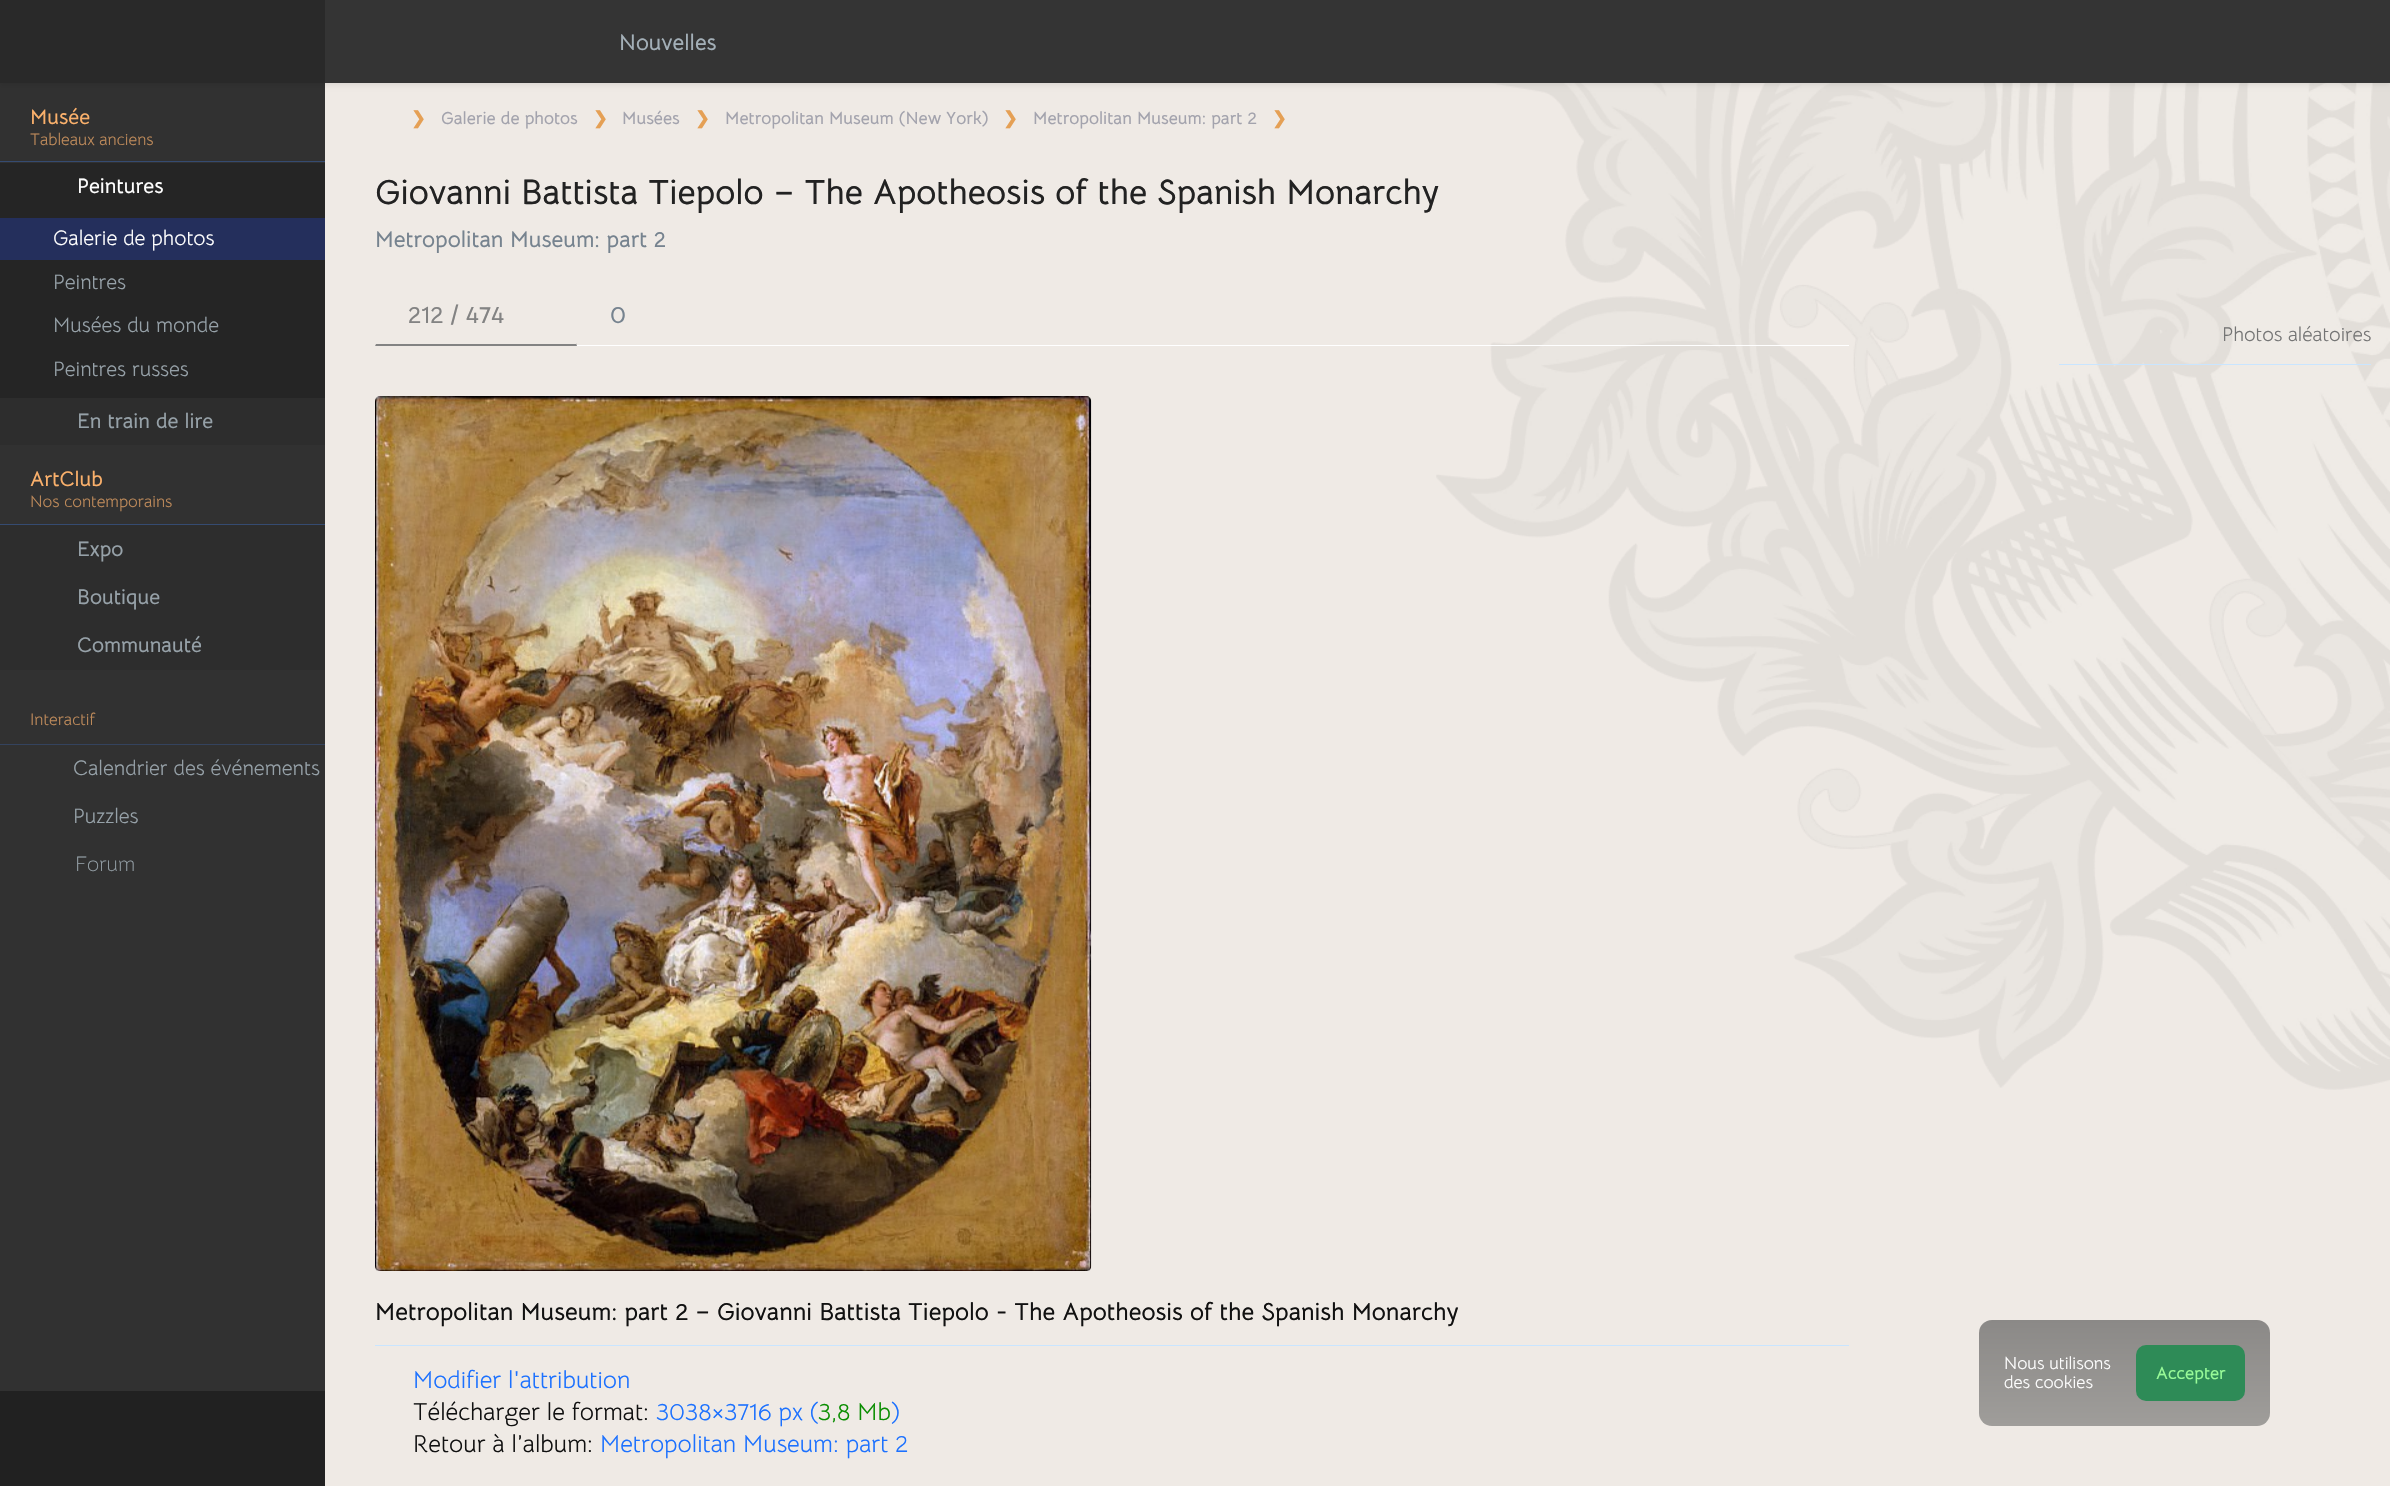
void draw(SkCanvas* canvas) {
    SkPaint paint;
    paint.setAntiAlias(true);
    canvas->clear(0xFF212121);
    paint.setColor(0xFF313131);
    canvas->drawRect(SkRect::MakeXYWH(0, 83, 325, 1308), paint);
    paint.setColor(0xFFEFEAE5);
    canvas->drawRect(SkRect::MakeXYWH(325, 83, 2065, 1403), paint);
    canvas->drawImageRect(SkImages::DeferredFromEncodedData(SkData::MakeFromFileName("img1.png")), SkRect::MakeXYWH(1436, 82, 954, 1008), SkSamplingOptions());
    canvas->save();
    canvas->clipPath(SkPathBuilder(SkPathFillType::kEvenOdd).moveTo(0, 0).lineTo(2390, 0).lineTo(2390, 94).lineTo(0, 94).close().moveTo(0, 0).lineTo(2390, 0).lineTo(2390, 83).lineTo(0, 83).close().detach(), true);
    paint.setColor(0x14000000);
    paint.setMaskFilter(SkMaskFilter::MakeBlur(kNormal_SkBlurStyle, 2.5f));
    canvas->drawRect(SkRect::MakeXYWH(0, 3, 2390, 82), paint);
    paint.setMaskFilter(nullptr);
    canvas->restore();
    paint.setColor(0xBA3B3B3B);
    canvas->drawRect(SkRect::MakeXYWH(325, 0, 2065, 83), paint);
    paint.setColor(0xFF292929);
    canvas->drawRect(SkRect::MakeXYWH(0, 0, 325, 83), paint);
    SkFont font1(fontMgr->matchFamilyStyle("Bellota Text", SkFontStyle::Bold()), 22.5f);
    font1.setSubpixel(true);
    paint.setColor(0xFFA3AFB7);
    canvas->drawString("Nouvelles", 619, 50, font1, paint);
    paint.setColor(0xFF354B71);
    canvas->drawRect(SkRect::MakeXYWH(0, 161, 325, 1), paint);
    SkFont font2(fontMgr->matchFamilyStyle("Bellota Text", SkFontStyle::Bold()), 21);
    font2.setSubpixel(true);
    paint.setColor(0xFFFAB06B);
    canvas->drawString("Musée", 30, 124, font2, paint);
    SkFont font3(fontMgr->matchFamilyStyle("Bellota Text", SkFontStyle::Normal()), 16.75f);
    font3.setSubpixel(true);
    paint.setColor(0xFFBE8A5A);
    canvas->drawString("Tableaux anciens", 30, 145, font3, paint);
    paint.setColor(0xFF252525);
    canvas->drawRect(SkRect::MakeXYWH(0, 163, 325, 235), paint);
    paint.setColor(0xFFFFFFFF);
    canvas->drawString("Peintures", 77, 193, font2, paint);
    paint.setColor(0xFF242F5C);
    canvas->drawRect(SkRect::MakeXYWH(0, 218, 325, 42), paint);
    SkFont font4(fontMgr->matchFamilyStyle("Bellota Text", SkFontStyle::Normal()), 21);
    font4.setSubpixel(true);
    paint.setColor(0xFFFFFFFF);
    canvas->drawString("Galerie de photos", 53, 245, font4, paint);
    paint.setColor(0xFF96A1A8);
    canvas->drawString("Peintres", 53, 289, font4, paint);
    canvas->drawString("Musées du monde", 53, 332, font4, paint);
    canvas->drawString("Peintres russes", 53, 376, font4, paint);
    paint.setColor(0xFF2D2D2D);
    canvas->drawRect(SkRect::MakeXYWH(0, 398, 325, 47), paint);
    paint.setColor(0xFF96A1A8);
    canvas->drawString("En train de lire", 77, 428, font2, paint);
    paint.setColor(0xFF354B71);
    canvas->drawRect(SkRect::MakeXYWH(0, 524, 325, 1), paint);
    paint.setColor(0xFFFAB06B);
    canvas->drawString("ArtClub", 30, 486, font2, paint);
    paint.setColor(0xFFBE8A5A);
    canvas->drawString("Nos contemporains", 30, 507, font3, paint);
    paint.setColor(0xFF2D2D2D);
    canvas->drawRect(SkRect::MakeXYWH(0, 525, 325, 145), paint);
    paint.setColor(0xFF96A1A8);
    canvas->drawString("Expo", 77, 556, font2, paint);
    canvas->drawString("Boutique", 77, 604, font2, paint);
    canvas->drawString("Communauté", 77, 652, font2, paint);
    paint.setColor(0xFF34435E);
    canvas->drawRect(SkRect::MakeXYWH(0, 744, 325, 1), paint);
    paint.setColor(0xFFBE8A5A);
    canvas->drawString("Interactif", 30, 725, font3, paint);
    paint.setColor(0xFF96A1A8);
    canvas->drawString("Calendrier des événements", 73, 775, font4, paint);
    canvas->drawString("Puzzles", 73, 823, font4, paint);
    SkFont font5(fontMgr->matchFamilyStyle("Bellota Text", SkFontStyle(300, SkFontStyle::kNormal_Width, SkFontStyle::kUpright_Slant)), 21);
    font5.setSubpixel(true);
    canvas->drawString("Forum", 75, 871, font5, paint);
    SkFont font6(fontMgr->matchFamilyStyle("DejaVu Sans", SkFontStyle::Bold()), 17.5f);
    font6.setSubpixel(true);
    paint.setColor(0xFFE5A055);
    canvas->drawString("❯", 411, 124, font6, paint);
    SkFont font7(fontMgr->matchFamilyStyle("Bellota Text", SkFontStyle::Bold()), 17.5f);
    font7.setSubpixel(true);
    paint.setColor(0xFFA3A3AD);
    canvas->drawString("Galerie de photos", 441, 124, font7, paint);
    paint.setColor(0xFFE5A055);
    canvas->drawString("❯", 593, 124, font6, paint);
    paint.setColor(0xFFA3A3AD);
    canvas->drawString("Musées", 622, 124, font7, paint);
    paint.setColor(0xFFE5A055);
    canvas->drawString("❯", 695, 124, font6, paint);
    paint.setColor(0xFFA3A3AD);
    canvas->drawString("Metropolitan Museum (New York)", 725, 124, font7, paint);
    paint.setColor(0xFFE5A055);
    canvas->drawString("❯", 1003, 124, font6, paint);
    paint.setColor(0xFFA3A3AD);
    canvas->drawString("Metropolitan Museum: part 2", 1033, 124, font7, paint);
    paint.setColor(0xFFE5A055);
    canvas->drawString("❯", 1272, 124, font6, paint);
    SkFont font8(fontMgr->matchFamilyStyle("Bellota Text", SkFontStyle::Bold()), 35);
    font8.setSubpixel(true);
    paint.setColor(0xFF222222);
    canvas->drawString("Giovanni Battista Tiepolo – The Apotheosis of the Spanish Monarchy", 375, 204, font8, paint);
    SkFont font9(fontMgr->matchFamilyStyle("Bellota Text", SkFontStyle::Bold()), 22.75f);
    font9.setSubpixel(true);
    paint.setColor(0xFF76838F);
    canvas->drawString("Metropolitan Museum: part 2", 375, 247, font9, paint);
    paint.setColor(0xFFFFFFFF);
    canvas->drawRect(SkRect::MakeXYWH(375, 345, 1474, 1), paint);
    paint.setColor(0xFF838383);
    canvas->drawPath(SkPathBuilder().moveTo(577, 346).lineTo(375, 346).lineTo(376, 344).lineTo(576, 344).lineTo(576, 343).close().detach(), paint);
    SkFont font10(fontMgr->matchFamilyStyle("Bellota Text", SkFontStyle::Bold()), 24.5f);
    font10.setSubpixel(true);
    canvas->drawString("212 / 474", 408, 323, font10, paint);
    paint.setColor(0xFF76838F);
    canvas->drawString("0", 610, 323, font10, paint);
    canvas->drawImageRect(SkImages::DeferredFromEncodedData(SkData::MakeFromFileName("img2.png")), SkRect::MakeXYWH(375, 396, 717, 875), SkSamplingOptions());
    paint.setColor(0xFF111111);
    canvas->drawString("Metropolitan Museum: part 2 – Giovanni Battista Tiepolo - The Apotheosis of the Spanish Monarchy", 375, 1320, font10, paint);
    paint.setColor(0xFFC9E5FF);
    canvas->drawRect(SkRect::MakeXYWH(375, 1345, 1474, 1), paint);
    SkFont font11(fontMgr->matchFamilyStyle("Bellota Text", SkFontStyle::Normal()), 24.5f);
    font11.setSubpixel(true);
    paint.setColor(0xFF1C71FF);
    canvas->drawString("Modifier l'attribution", 413, 1388, font11, paint);
    paint.setColor(0xFF111111);
    canvas->drawString("Télécharger le format:", 413, 1420, font11, paint);
    paint.setColor(0xFF1C71FF);
    canvas->drawString("3038×3716 px (", 656, 1420, font11, paint);
    paint.setColor(0xFF098D00);
    canvas->drawString("3,8 Mb", 818, 1420, font11, paint);
    paint.setColor(0xFF1C71FF);
    canvas->drawString(")", 891, 1420, font11, paint);
    paint.setColor(0xFF111111);
    canvas->drawString("Retour à l’album:", 413, 1452, font11, paint);
    paint.setColor(0xFF1C71FF);
    canvas->drawString("Metropolitan Museum: part 2", 600, 1452, font11, paint);
    SkFont font12(fontMgr->matchFamilyStyle("Bellota Text", SkFontStyle::Normal()), 20);
    font12.setSubpixel(true);
    paint.setColor(0xFF757575);
    canvas->drawString("Photos aléatoires", 2222, 341, font12, paint);
    paint.setColor(0xFFC9E5FF);
    canvas->drawRect(SkRect::MakeXYWH(2059, 364, 312, 1), paint);
    {
        const SkColor colors[] = {0xFF9F9D9A, 0xFF8B8987};
        const float stops[] = {0, 1};
        const SkPoint ends[] = {{2124, 1426}, {2124, 1320}};
        paint.setShader(SkGradientShader::MakeLinear(ends, colors, stops, 2, SkTileMode::kClamp));
        paint.setAlpha(255);
    }
    canvas->drawRoundRect(SkRect::MakeXYWH(1979, 1320, 291, 106), 13, 13, paint);
    SkFont font13(fontMgr->matchFamilyStyle("Bellota Text", SkFontStyle::Normal()), 17.5f);
    font13.setSubpixel(true);
    paint.setShader(nullptr);
    paint.setColor(0xFFFFFFFF);
    canvas->drawString("Nous utilisons", 2004, 1369, font13, paint);
    canvas->drawString("des cookies", 2004, 1388, font13, paint);
    paint.setColor(0xFF2E8B57);
    canvas->drawRoundRect(SkRect::MakeXYWH(2136, 1345, 109, 56), 10, 10, paint);
    paint.setColor(0xFF98FB98);
    canvas->drawString("Accepter", 2156, 1379, font7, paint);
}
